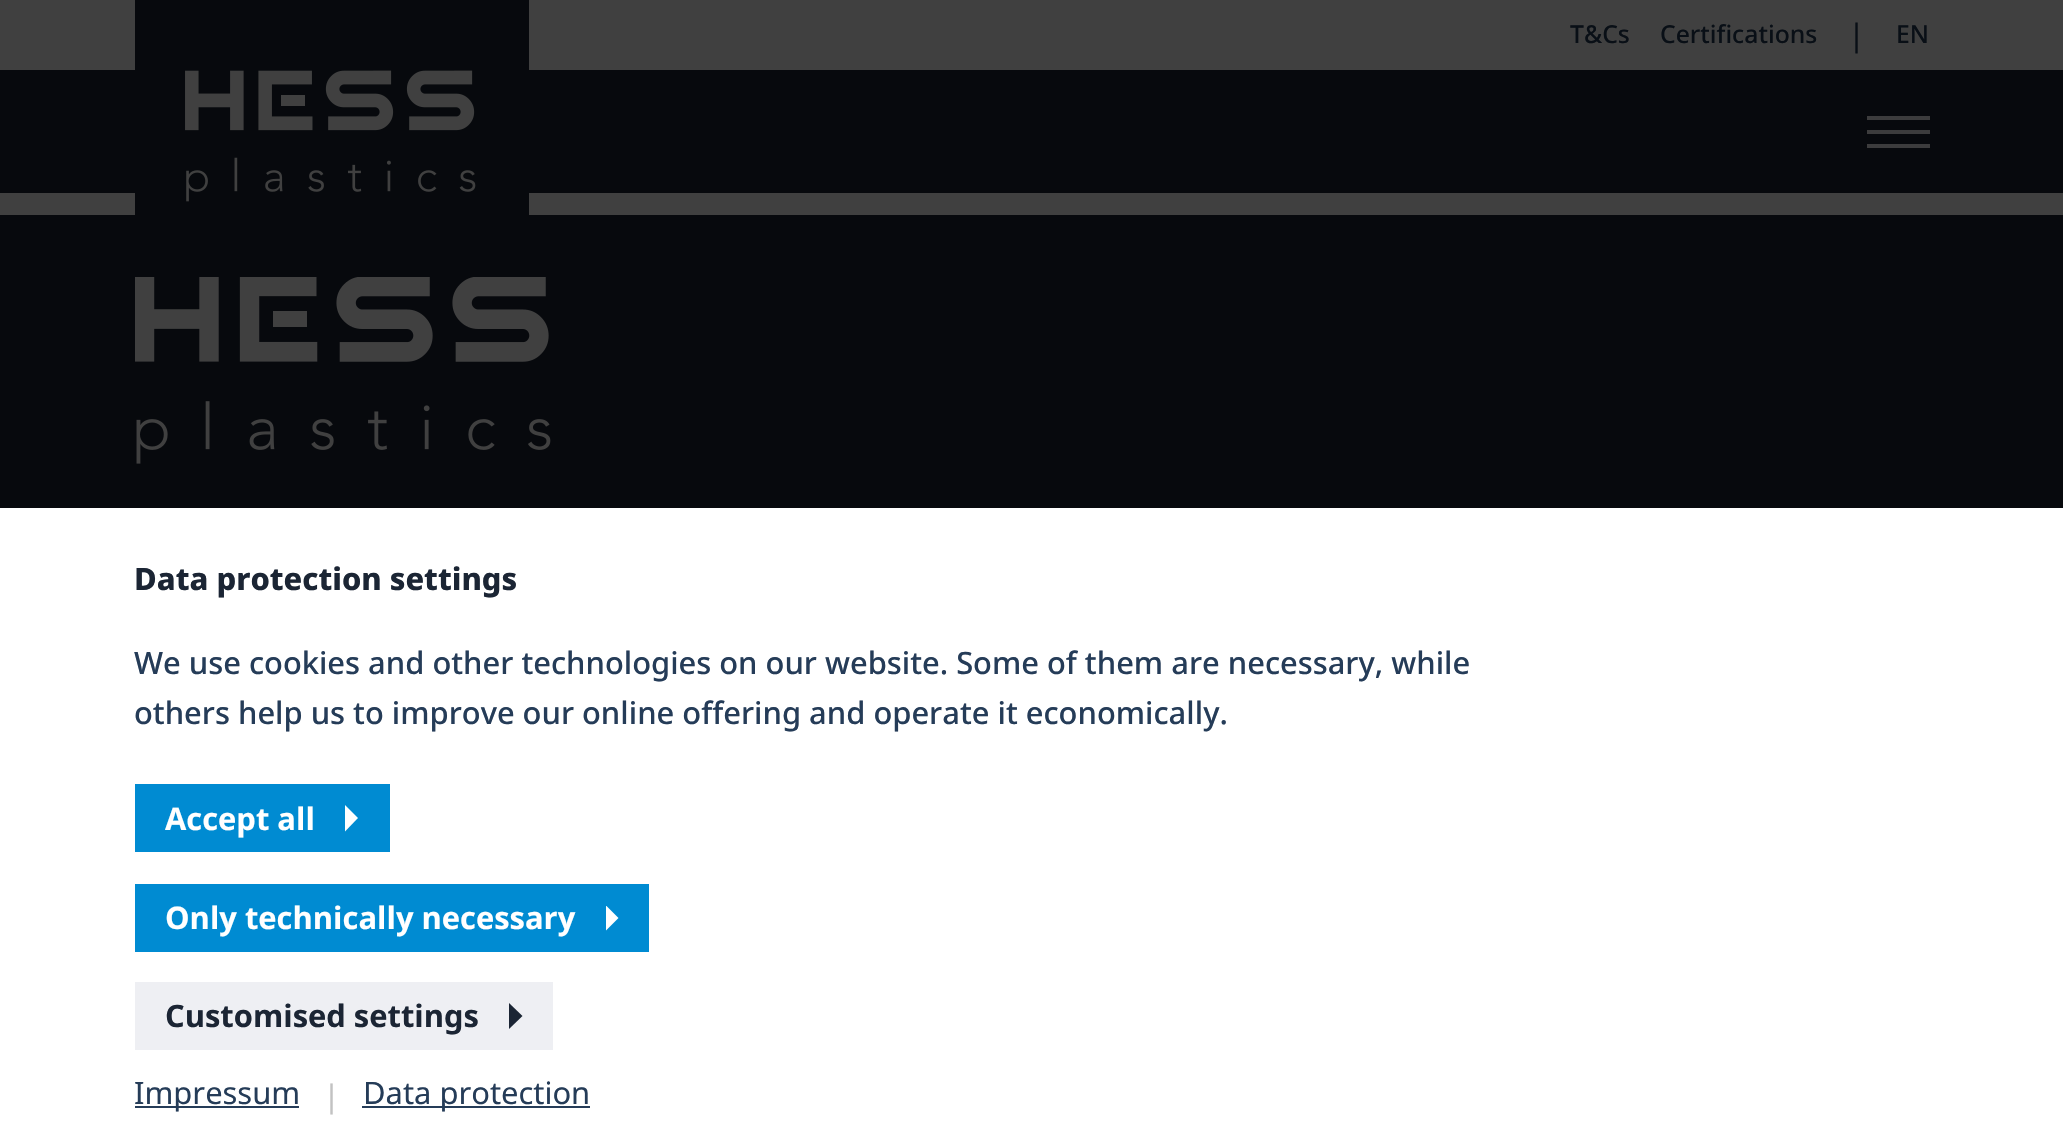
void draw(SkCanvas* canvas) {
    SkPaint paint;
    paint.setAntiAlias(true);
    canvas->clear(0xFF404040);
    paint.setColor(0xFF07090D);
    canvas->drawRect(SkRect::MakeXYWH(0, 70, 2063, 123), paint);
    canvas->drawRect(SkRect::MakeXYWH(135, 0, 394, 215), paint);
    canvas->drawImageRect(SkImages::DeferredFromEncodedData(SkData::MakeFromFileName("img1.png")), SkRect::MakeXYWH(185, 70, 291, 132), SkSamplingOptions());
    paint.setColor(0xFF3C3C3D);
    canvas->drawRect(SkRect::MakeXYWH(1867, 116, 63, 4), paint);
    canvas->drawRect(SkRect::MakeXYWH(1867, 130, 63, 4), paint);
    canvas->drawRect(SkRect::MakeXYWH(1867, 144, 63, 4), paint);
    SkFont font1(fontMgr->matchFamilyStyle("Noto Sans", SkFontStyle(500, SkFontStyle::kNormal_Width, SkFontStyle::kUpright_Slant)), 24.75f);
    font1.setSubpixel(true);
    paint.setColor(0xFF090F16);
    canvas->drawString("T&Cs", 1570, 43, font1, paint);
    canvas->drawString("Certifications", 1660, 43, font1, paint);
    SkFont font2(fontMgr->matchFamilyStyle("Noto Sans", SkFontStyle::Normal()), 30.9f);
    font2.setSubpixel(true);
    canvas->drawString("|", 1848, 46, font2, paint);
    canvas->drawString("EN", 1896, 43, font1, paint);
    paint.setColor(0xFF07090D);
    canvas->drawRect(SkRect::MakeXYWH(0, 215, 2063, 293), paint);
    canvas->drawImageRect(SkImages::DeferredFromEncodedData(SkData::MakeFromFileName("img2.png")), SkRect::MakeXYWH(135, 277, 416, 187), SkSamplingOptions());
    paint.setColor(0xFFFFFFFF);
    canvas->drawRect(SkRect::MakeXYWH(0, 508, 2063, 634), paint);
    SkFont font3(fontMgr->matchFamilyStyle("Noto Sans", SkFontStyle(800, SkFontStyle::kNormal_Width, SkFontStyle::kUpright_Slant)), 30.9f);
    font3.setSubpixel(true);
    paint.setColor(0xFF1B2534);
    canvas->drawString("Data protection settings", 134, 590, font3, paint);
    SkFont font4(fontMgr->matchFamilyStyle("Noto Sans", SkFontStyle(500, SkFontStyle::kNormal_Width, SkFontStyle::kUpright_Slant)), 30.9f);
    font4.setSubpixel(true);
    paint.setColor(0xFF253C58);
    canvas->drawString("We use cookies and other technologies on our website. Some of them are necessary, while", 134, 674, font4, paint);
    canvas->drawString("others help us to improve our online offering and operate it economically.", 134, 724, font4, paint);
    paint.setColor(0xFF008BD2);
    canvas->drawRect(SkRect::MakeXYWH(135, 784, 255, 68), paint);
    SkFont font5(fontMgr->matchFamilyStyle("Noto Sans", SkFontStyle::Bold()), 30.9f);
    font5.setSubpixel(true);
    paint.setColor(0xFFFFFFFF);
    canvas->drawString("Accept all", 165, 830, font5, paint);
    canvas->drawPath(SkPathBuilder(SkPathFillType::kEvenOdd).moveTo(345, 805).lineTo(358, 818).lineTo(345, 831.5f).close().detach(), paint);
    paint.setColor(0xFF008BD2);
    canvas->drawRect(SkRect::MakeXYWH(135, 884, 514, 68), paint);
    paint.setColor(0xFFFFFFFF);
    canvas->drawString("Only technically necessary", 165, 929, font5, paint);
    canvas->save();
    canvas->clipRect(SkRect::MakeXYWH(606, 905, 14, 26));
    canvas->drawPath(SkPathBuilder(SkPathFillType::kEvenOdd).moveTo(605.5f, 905).lineTo(618.5f, 918).lineTo(605.5f, 931).close().detach(), paint);
    canvas->restore();
    paint.setColor(0xFFEEEFF3);
    canvas->drawRect(SkRect::MakeXYWH(135, 982, 418, 68), paint);
    paint.setColor(0xFF1B2534);
    canvas->drawString("Customised settings", 165, 1027, font5, paint);
    canvas->drawPath(SkPathBuilder(SkPathFillType::kEvenOdd).moveTo(509, 1003).lineTo(522.5f, 1016).lineTo(509, 1029).close().detach(), paint);
    paint.setColor(0xFF253C58);
    canvas->drawRect(SkRect::MakeXYWH(135, 1106, 164, 2), paint);
    canvas->drawString("Impressum", 134, 1104, font2, paint);
    paint.setColor(0xFFC2C2C2);
    canvas->drawString("|", 323, 1107, font2, paint);
    paint.setColor(0xFF253C58);
    canvas->drawRect(SkRect::MakeXYWH(362, 1106, 228, 2), paint);
    canvas->drawString("Data protection", 363, 1104, font2, paint);
}
